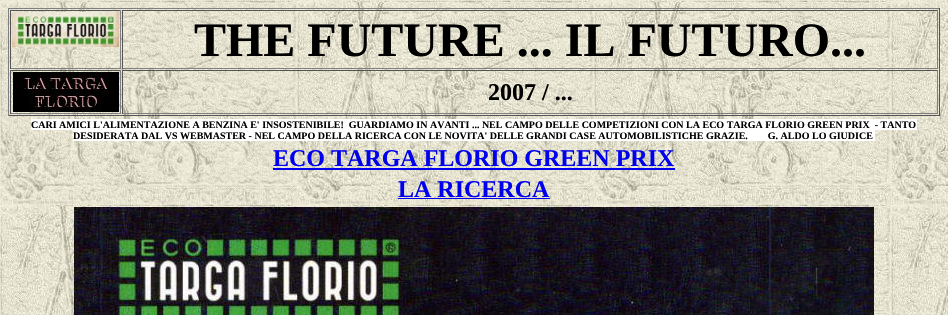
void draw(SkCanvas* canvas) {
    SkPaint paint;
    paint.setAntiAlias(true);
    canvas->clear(0xFFFFFFFF);
    canvas->drawImageRect(SkImages::DeferredFromEncodedData(SkData::MakeFromFileName("img1.png")), SkRect::MakeXYWH(0, 0, 948, 315), SkSamplingOptions());
    paint.setColor(0xFF808080);
    canvas->drawRect(SkRect::MakeXYWH(8, 8, 932, 1), paint);
    paint.setColor(0xFF555555);
    canvas->drawRect(SkRect::MakeXYWH(939, 8, 1, 108), paint);
    canvas->drawRect(SkRect::MakeXYWH(8, 115, 932, 1), paint);
    paint.setColor(0xFF808080);
    canvas->drawRect(SkRect::MakeXYWH(8, 8, 1, 108), paint);
    paint.setColor(0xFF555555);
    canvas->drawRect(SkRect::MakeXYWH(10, 10, 111, 1), paint);
    paint.setColor(0xFF808080);
    canvas->drawRect(SkRect::MakeXYWH(120, 10, 1, 59), paint);
    canvas->drawRect(SkRect::MakeXYWH(10, 68, 111, 1), paint);
    paint.setColor(0xFF555555);
    canvas->drawRect(SkRect::MakeXYWH(10, 10, 1, 59), paint);
    canvas->drawImageRect(SkImages::DeferredFromEncodedData(SkData::MakeFromFileName("img2.png")), SkRect::MakeXYWH(12, 12, 107, 35), SkSamplingOptions());
    canvas->drawRect(SkRect::MakeXYWH(122, 10, 816, 1), paint);
    paint.setColor(0xFF808080);
    canvas->drawRect(SkRect::MakeXYWH(937, 10, 1, 59), paint);
    canvas->drawRect(SkRect::MakeXYWH(122, 68, 816, 1), paint);
    paint.setColor(0xFF555555);
    canvas->drawRect(SkRect::MakeXYWH(122, 10, 1, 59), paint);
    SkFont font1(fontMgr->matchFamilyStyle("Liberation Serif", SkFontStyle::Bold()), 48);
    font1.setSubpixel(true);
    paint.setColor(0xFF000000);
    canvas->drawString("THE FUTURE ... IL FUTURO...", 194, 56, font1, paint);
    paint.setColor(0xFF555555);
    canvas->drawRect(SkRect::MakeXYWH(10, 70, 111, 1), paint);
    paint.setColor(0xFF808080);
    canvas->drawRect(SkRect::MakeXYWH(120, 70, 1, 44), paint);
    canvas->drawRect(SkRect::MakeXYWH(10, 113, 111, 1), paint);
    paint.setColor(0xFF555555);
    canvas->drawRect(SkRect::MakeXYWH(10, 70, 1, 44), paint);
    canvas->drawImageRect(SkImages::DeferredFromEncodedData(SkData::MakeFromFileName("img3.png")), SkRect::MakeXYWH(13, 72, 106, 40), SkSamplingOptions());
    canvas->drawRect(SkRect::MakeXYWH(122, 70, 816, 1), paint);
    paint.setColor(0xFF808080);
    canvas->drawRect(SkRect::MakeXYWH(937, 70, 1, 44), paint);
    canvas->drawRect(SkRect::MakeXYWH(122, 113, 816, 1), paint);
    paint.setColor(0xFF555555);
    canvas->drawRect(SkRect::MakeXYWH(122, 70, 1, 44), paint);
    SkFont font2(fontMgr->matchFamilyStyle("Liberation Serif", SkFontStyle::Bold()), 24);
    font2.setSubpixel(true);
    paint.setColor(0xFF000000);
    canvas->drawString("2007 / ...", 488, 100, font2, paint);
    paint.setColor(0xFFFFFFFF);
    canvas->drawRect(SkRect::MakeXYWH(31, 119, 886, 11), paint);
    SkFont font3(fontMgr->matchFamilyStyle("Liberation Serif", SkFontStyle::Bold()), 10);
    font3.setSubpixel(true);
    paint.setColor(0xFF000000);
    canvas->drawString("CARI AMICI L'ALIMENTAZIONE A BENZINA E' INSOSTENIBILE!  GUARDIAMO IN AVANTI ... NEL CAMPO DELLE COMPETIZIONI CON LA ECO TARGA FLORIO GREEN PRIX  - TANTO", 31, 128, font3, paint);
    paint.setColor(0xFFFFFFFF);
    canvas->drawRect(SkRect::MakeXYWH(73, 130, 802, 11), paint);
    paint.setColor(0xFF000000);
    canvas->drawString("DESIDERATA DAL VS WEBMASTER - NEL CAMPO DELLA RICERCA CON LE NOVITA' DELLE GRANDI CASE AUTOMOBILISTICHE GRAZIE.        G. ALDO LO GIUDICE", 73, 139, font3, paint);
    paint.setColor(0xFF0000EE);
    canvas->drawString("ECO TARGA FLORIO GREEN PRIX", 273, 166, font2, paint);
    canvas->drawRect(SkRect::MakeXYWH(273, 168, 402, 2), paint);
    canvas->drawString("LA RICERCA", 398, 197, font2, paint);
    canvas->drawRect(SkRect::MakeXYWH(398, 198, 152, 1), paint);
    canvas->drawImageRect(SkImages::DeferredFromEncodedData(SkData::MakeFromFileName("img4.png")), SkRect::MakeXYWH(74, 207, 800, 108), SkSamplingOptions());
}
